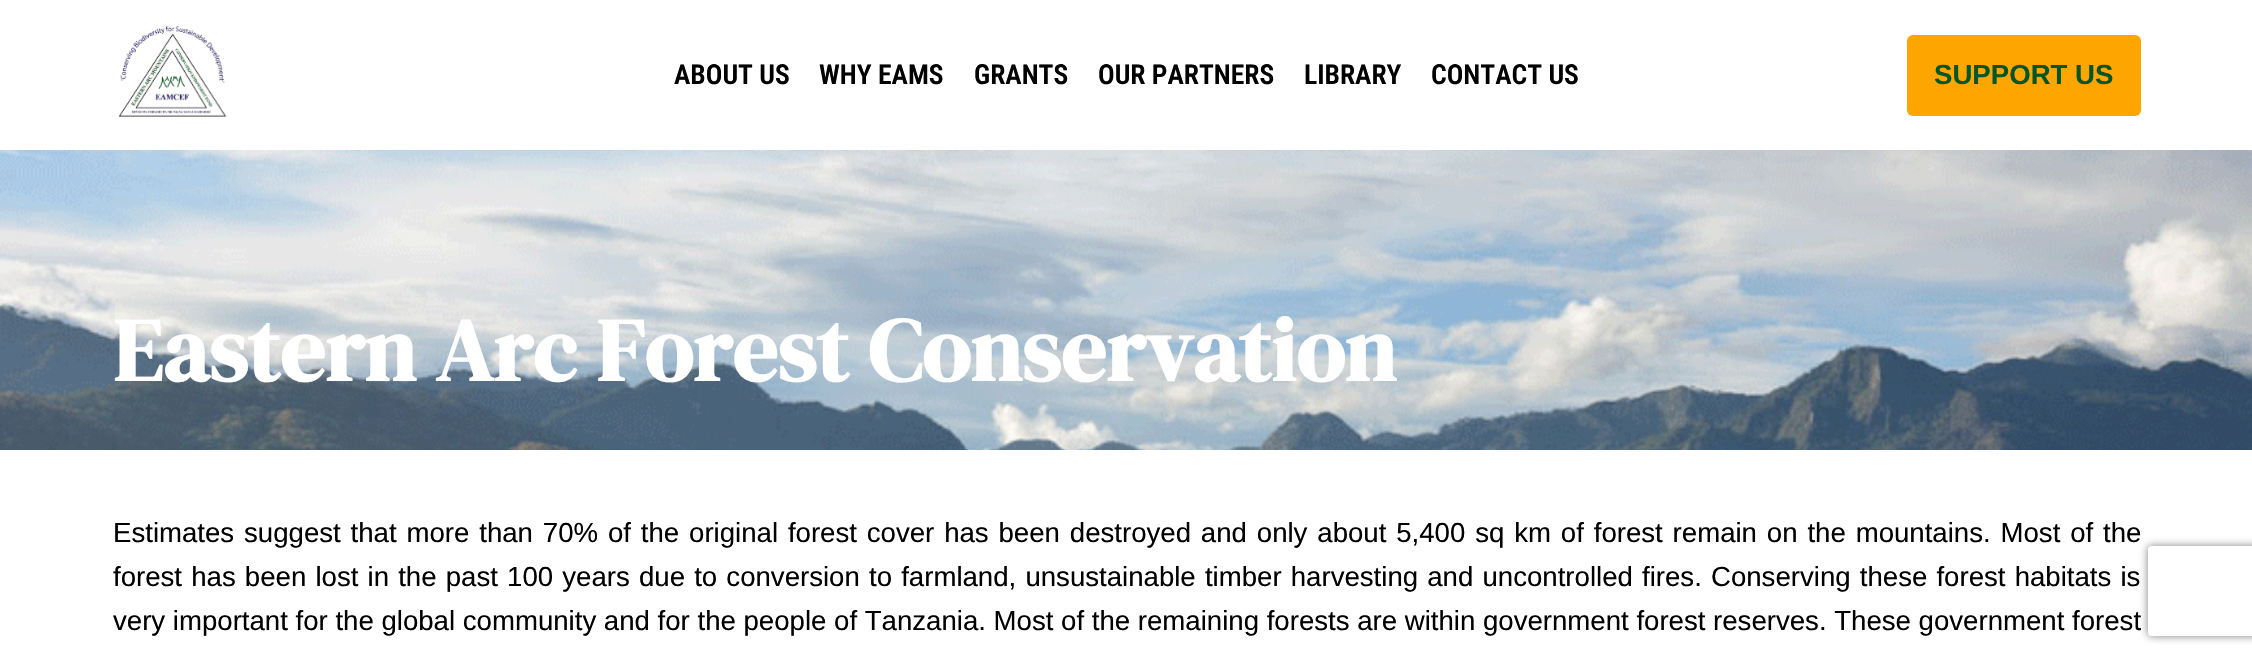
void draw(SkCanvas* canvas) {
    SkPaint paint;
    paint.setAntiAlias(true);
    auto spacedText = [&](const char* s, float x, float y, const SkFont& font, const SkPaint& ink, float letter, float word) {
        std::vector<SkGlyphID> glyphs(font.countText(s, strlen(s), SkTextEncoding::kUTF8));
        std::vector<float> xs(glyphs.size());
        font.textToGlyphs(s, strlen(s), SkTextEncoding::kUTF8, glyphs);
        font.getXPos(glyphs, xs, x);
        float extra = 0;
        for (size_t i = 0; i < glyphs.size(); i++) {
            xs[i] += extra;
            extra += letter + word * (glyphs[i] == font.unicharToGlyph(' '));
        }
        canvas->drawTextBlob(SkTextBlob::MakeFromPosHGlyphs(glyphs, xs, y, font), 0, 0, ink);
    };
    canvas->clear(0xFFFFFFFF);
    canvas->drawImageRect(SkImages::DeferredFromEncodedData(SkData::MakeFromFileName("img1.png")), SkRect::MakeXYWH(118, 25, 109, 92), SkSamplingOptions());
    SkFont font1(fontMgr->matchFamilyStyle("Roboto Condensed", SkFontStyle(600, SkFontStyle::kNormal_Width, SkFontStyle::kUpright_Slant)), 27.6f);
    font1.setSubpixel(true);
    paint.setColor(0xFF000000);
    canvas->drawString("ABOUT US", 674, 84, font1, paint);
    canvas->drawString("WHY EAMS", 819, 84, font1, paint);
    canvas->drawString("GRANTS", 974, 84, font1, paint);
    canvas->drawString("OUR PARTNERS", 1098, 84, font1, paint);
    canvas->drawString("LIBRARY", 1304, 84, font1, paint);
    canvas->drawString("CONTACT US", 1431, 84, font1, paint);
    paint.setColor(0xFFFFA500);
    canvas->drawRoundRect(SkRect::MakeXYWH(1907, 35, 234, 81), 6, 6, paint);
    SkFont font2(fontMgr->matchFamilyStyle("Liberation Sans", SkFontStyle::Bold()), 27.6f);
    font2.setSubpixel(true);
    paint.setColor(0xFF02572A);
    canvas->drawString("SUPPORT US", 1934, 84, font2, paint);
    canvas->drawImageRect(SkImages::DeferredFromEncodedData(SkData::MakeFromFileName("img2.png")), SkRect::MakeXYWH(0, 150, 2252, 300), SkSamplingOptions());
    SkFont font3(fontMgr->matchFamilyStyle("DM Serif Display", SkFontStyle::Bold()), 89.2f);
    font3.setSubpixel(true);
    paint.setColor(0xFFFFFFFF);
    canvas->drawString("Eastern Arc Forest Conservation", 113, 381, font3, paint);
    SkFont font4(fontMgr->matchFamilyStyle("Liberation Sans", SkFontStyle::Normal()), 27.6f);
    font4.setSubpixel(true);
    paint.setColor(0xFF000000);
    spacedText("Estimates suggest that more than 70% of the original forest cover has been destroyed and only about 5,400 sq km of forest remain on the mountains. Most of the", 113, 542, font4, paint, 0, 2.2f);
    spacedText("forest has been lost in the past 100 years due to conversion to farmland, unsustainable timber harvesting and uncontrolled fires. Conserving these forest habitats is", 113, 586, font4, paint, 0, 1.5f);
    canvas->drawString("very important for the global community and for the people of Tanzania. Most of the remaining forests are within government forest reserves. These government forest", 113, 630, font4, paint);
    canvas->save();
    canvas->clipPath(SkPathBuilder(SkPathFillType::kEvenOdd).moveTo(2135, 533).lineTo(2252, 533).lineTo(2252, 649).lineTo(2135, 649).close().moveTo(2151, 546).lineTo(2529, 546).cubicTo(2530.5f, 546, 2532, 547.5f, 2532, 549).lineTo(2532, 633).cubicTo(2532, 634.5f, 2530.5f, 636, 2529, 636).lineTo(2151, 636).cubicTo(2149.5f, 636, 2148, 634.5f, 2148, 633).lineTo(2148, 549).cubicTo(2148, 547.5f, 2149.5f, 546, 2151, 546).close().detach(), true);
    paint.setColor(0xFF808080);
    paint.setMaskFilter(SkMaskFilter::MakeBlur(kNormal_SkBlurStyle, 4));
    canvas->drawRoundRect(SkRect::MakeXYWH(2148, 546, 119, 90), 3, 3, paint);
    paint.setMaskFilter(nullptr);
    canvas->restore();
}
